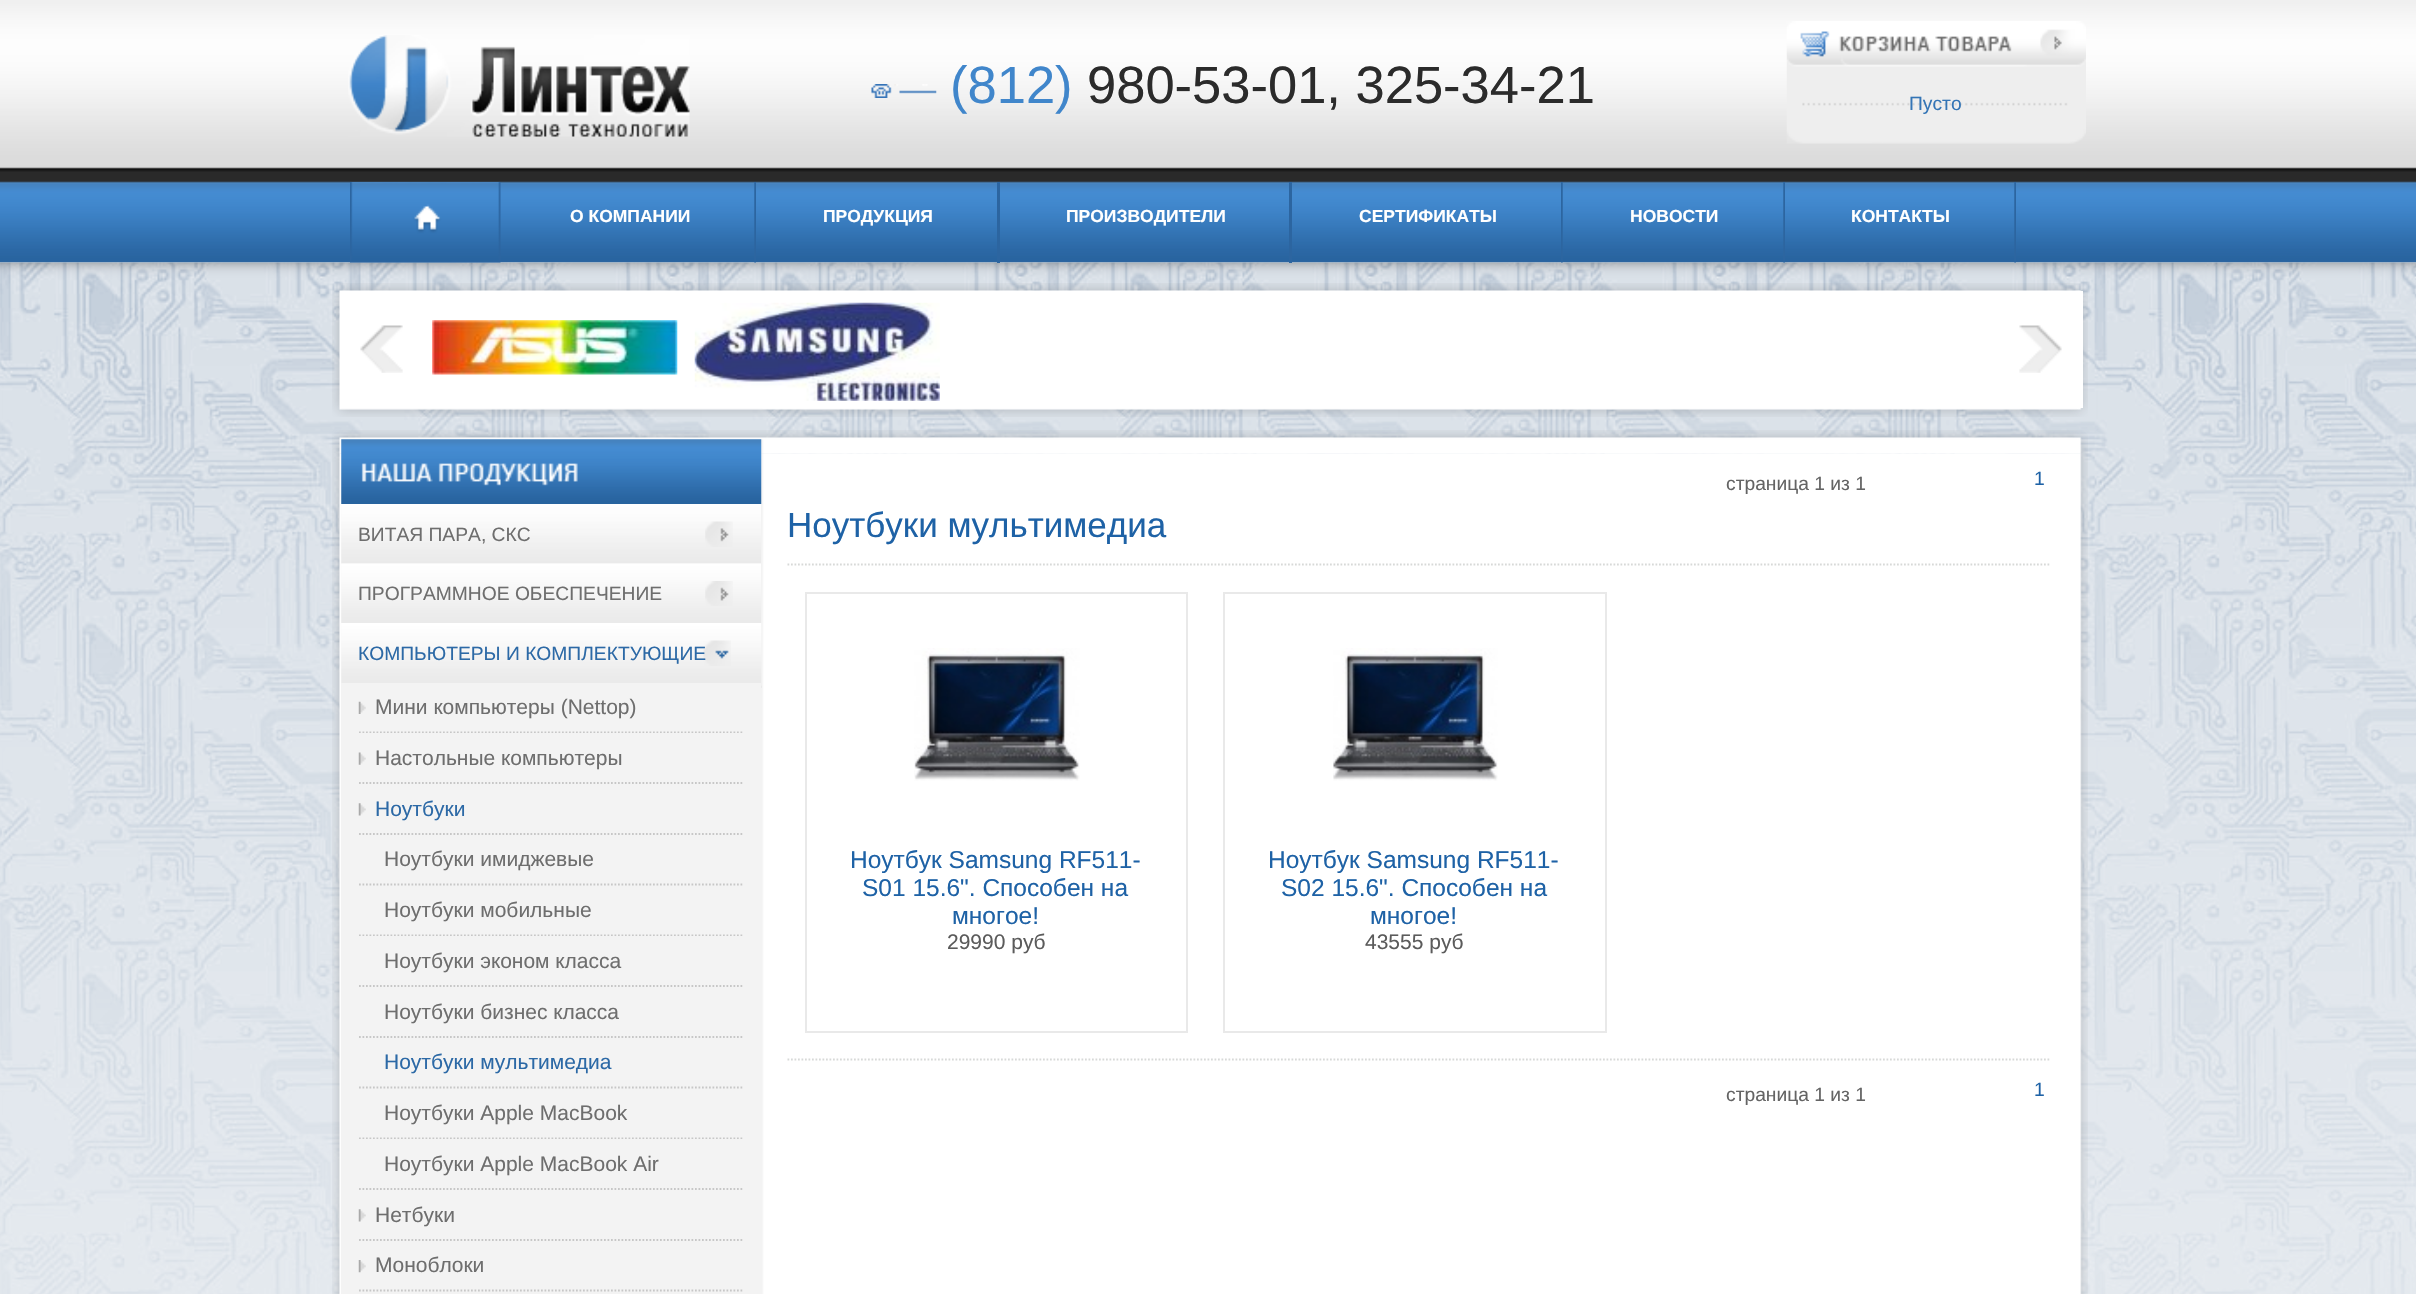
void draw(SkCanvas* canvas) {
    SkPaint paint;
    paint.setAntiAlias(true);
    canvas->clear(0xFFFFFFFF);
    canvas->drawImageRect(SkImages::DeferredFromEncodedData(SkData::MakeFromFileName("img1.png")), SkRect::MakeXYWH(0, 0, 2416, 263), SkSamplingOptions());
    canvas->drawImageRect(SkImages::DeferredFromEncodedData(SkData::MakeFromFileName("img2.png")), SkRect::MakeXYWH(348, 35, 342, 102), SkSamplingOptions());
    canvas->drawImageRect(SkImages::DeferredFromEncodedData(SkData::MakeFromFileName("img3.png")), SkRect::MakeXYWH(871, 84, 66, 14), SkSamplingOptions());
    SkFont font1(fontMgr->matchFamilyStyle("Liberation Sans", SkFontStyle::Normal()), 52.5f);
    font1.setSubpixel(true);
    paint.setColor(0xFF4086CB);
    canvas->drawString("(812)", 950, 103, font1, paint);
    paint.setColor(0xFF2B2B2B);
    canvas->drawString("980-53-01, 325-34-21", 1087, 103, font1, paint);
    canvas->drawImageRect(SkImages::DeferredFromEncodedData(SkData::MakeFromFileName("img4.png")), SkRect::MakeXYWH(1786, 21, 300, 123), SkSamplingOptions());
    SkFont font2(fontMgr->matchFamilyStyle("Liberation Sans", SkFontStyle::Normal()), 19.25f);
    font2.setSubpixel(true);
    paint.setColor(0xFF3475B6);
    canvas->drawString("Пусто", 1909, 110, font2, paint);
    canvas->drawImageRect(SkImages::DeferredFromEncodedData(SkData::MakeFromFileName("img10.png")), SkRect::MakeXYWH(0, 262, 2416, 1032), SkSamplingOptions());
    canvas->drawImageRect(SkImages::DeferredFromEncodedData(SkData::MakeFromFileName("img5.png")), SkRect::MakeXYWH(350, 182, 151, 81), SkSamplingOptions());
    canvas->drawImageRect(SkImages::DeferredFromEncodedData(SkData::MakeFromFileName("img6.png")), SkRect::MakeXYWH(754, 182, 2, 81), SkSamplingOptions());
    SkFont font3(fontMgr->matchFamilyStyle("Liberation Sans", SkFontStyle::Bold()), 17.5f);
    font3.setSubpixel(true);
    paint.setColor(0xFFFFFFFF);
    canvas->drawString("О КОМПАНИИ", 570, 222, font3, paint);
    paint.setColor(0xFF2C65A0);
    canvas->drawRect(SkRect::MakeXYWH(997, 182, 3, 81), paint);
    paint.setColor(0xFFFFFFFF);
    canvas->drawString("ПРОДУКЦИЯ", 823, 222, font3, paint);
    paint.setColor(0xFF2C65A0);
    canvas->drawRect(SkRect::MakeXYWH(1289, 182, 3, 81), paint);
    paint.setColor(0xFFFFFFFF);
    canvas->drawString("ПРОИЗВОДИТЕЛИ", 1066, 222, font3, paint);
    canvas->drawImageRect(SkImages::DeferredFromEncodedData(SkData::MakeFromFileName("img7.png")), SkRect::MakeXYWH(1561, 182, 2, 81), SkSamplingOptions());
    canvas->drawString("СЕРТИФИКАТЫ", 1359, 222, font3, paint);
    canvas->drawImageRect(SkImages::DeferredFromEncodedData(SkData::MakeFromFileName("img8.png")), SkRect::MakeXYWH(1783, 182, 2, 81), SkSamplingOptions());
    canvas->drawString("НОВОСТИ", 1630, 222, font3, paint);
    canvas->drawImageRect(SkImages::DeferredFromEncodedData(SkData::MakeFromFileName("img9.png")), SkRect::MakeXYWH(2014, 182, 2, 81), SkSamplingOptions());
    canvas->drawString("КОНТАКТЫ", 1851, 222, font3, paint);
    canvas->drawImageRect(SkImages::DeferredFromEncodedData(SkData::MakeFromFileName("img11.png")), SkRect::MakeXYWH(332, 306, 1756, 88), SkSamplingOptions());
    canvas->drawImageRect(SkImages::DeferredFromEncodedData(SkData::MakeFromFileName("img12.png")), SkRect::MakeXYWH(332, 283, 1756, 24), SkSamplingOptions());
    canvas->drawImageRect(SkImages::DeferredFromEncodedData(SkData::MakeFromFileName("img17.png")), SkRect::MakeXYWH(332, 393, 1756, 24), SkSamplingOptions());
    canvas->drawRect(SkRect::MakeXYWH(340, 291, 1743, 117), paint);
    canvas->drawImageRect(SkImages::DeferredFromEncodedData(SkData::MakeFromFileName("img13.png")), SkRect::MakeXYWH(360, 325, 43, 48), SkSamplingOptions());
    canvas->drawImageRect(SkImages::DeferredFromEncodedData(SkData::MakeFromFileName("img14.png")), SkRect::MakeXYWH(432, 320, 246, 55), SkSamplingOptions());
    canvas->drawImageRect(SkImages::DeferredFromEncodedData(SkData::MakeFromFileName("img15.png")), SkRect::MakeXYWH(694, 302, 246, 99), SkSamplingOptions());
    canvas->drawImageRect(SkImages::DeferredFromEncodedData(SkData::MakeFromFileName("img16.png")), SkRect::MakeXYWH(2019, 325, 43, 48), SkSamplingOptions());
    canvas->drawImageRect(SkImages::DeferredFromEncodedData(SkData::MakeFromFileName("img18.png")), SkRect::MakeXYWH(332, 453, 1756, 841), SkSamplingOptions());
    canvas->drawImageRect(SkImages::DeferredFromEncodedData(SkData::MakeFromFileName("img19.png")), SkRect::MakeXYWH(332, 430, 1756, 24), SkSamplingOptions());
    canvas->drawImageRect(SkImages::DeferredFromEncodedData(SkData::MakeFromFileName("img20.png")), SkRect::MakeXYWH(341, 439, 421, 65), SkSamplingOptions());
    canvas->drawImageRect(SkImages::DeferredFromEncodedData(SkData::MakeFromFileName("img21.png")), SkRect::MakeXYWH(341, 504, 420, 60), SkSamplingOptions());
    canvas->drawImageRect(SkImages::DeferredFromEncodedData(SkData::MakeFromFileName("img22.png")), SkRect::MakeXYWH(705, 521, 28, 26), SkSamplingOptions());
    paint.setColor(0xFF6E6E6E);
    canvas->drawString("ВИТАЯ ПАРА, СКС", 358, 541, font2, paint);
    canvas->drawImageRect(SkImages::DeferredFromEncodedData(SkData::MakeFromFileName("img23.png")), SkRect::MakeXYWH(341, 563, 420, 60), SkSamplingOptions());
    canvas->drawImageRect(SkImages::DeferredFromEncodedData(SkData::MakeFromFileName("img24.png")), SkRect::MakeXYWH(705, 581, 28, 25), SkSamplingOptions());
    canvas->drawString("ПРОГРАММНОЕ ОБЕСПЕЧЕНИЕ", 358, 600, font2, paint);
    canvas->drawImageRect(SkImages::DeferredFromEncodedData(SkData::MakeFromFileName("img25.png")), SkRect::MakeXYWH(341, 623, 421, 65), SkSamplingOptions());
    canvas->drawImageRect(SkImages::DeferredFromEncodedData(SkData::MakeFromFileName("img26.png")), SkRect::MakeXYWH(703, 640, 28, 26), SkSamplingOptions());
    paint.setColor(0xFF2C69A6);
    canvas->drawString("КОМПЬЮТЕРЫ И КОМПЛЕКТУЮЩИЕ", 358, 660, font2, paint);
    paint.setColor(0xFFF3F3F3);
    canvas->drawRect(SkRect::MakeXYWH(341, 683, 420, 50), paint);
    canvas->drawImageRect(SkImages::DeferredFromEncodedData(SkData::MakeFromFileName("img27.png")), SkRect::MakeXYWH(358, 701, 8, 13), SkSamplingOptions());
    paint.setStyle(SkPaint::kStroke_Style);
    paint.setStrokeWidth(1.8f);
    paint.setColor(0xFFC7C7C7);
    paint.setPathEffect(SkDashPathEffect::Make({{1.75f, 1.75f}}, 0));
    canvas->drawPath(SkPathBuilder().moveTo(359, 732.5f).lineTo(744, 732.5f).detach(), paint);
    paint.setPathEffect(nullptr);
    SkFont font4(fontMgr->matchFamilyStyle("Liberation Sans", SkFontStyle::Normal()), 21);
    font4.setSubpixel(true);
    paint.setStyle(SkPaint::kFill_Style);
    paint.setColor(0xFF6E6E6E);
    canvas->drawString("Мини компьютеры (Nettop)", 375, 714, font4, paint);
    paint.setColor(0xFFF3F3F3);
    canvas->drawRect(SkRect::MakeXYWH(341, 733, 402, 51), paint);
    canvas->drawImageRect(SkImages::DeferredFromEncodedData(SkData::MakeFromFileName("img28.png")), SkRect::MakeXYWH(358, 752, 8, 13), SkSamplingOptions());
    paint.setStyle(SkPaint::kStroke_Style);
    paint.setColor(0xFFC7C7C7);
    paint.setPathEffect(SkDashPathEffect::Make({{1.75f, 1.75f}}, 0));
    canvas->drawPath(SkPathBuilder().moveTo(359, 783).lineTo(744, 783).detach(), paint);
    paint.setPathEffect(nullptr);
    paint.setStyle(SkPaint::kFill_Style);
    paint.setColor(0xFF6E6E6E);
    canvas->drawString("Настольные компьютеры", 375, 765, font4, paint);
    paint.setColor(0xFFF3F3F3);
    canvas->drawRect(SkRect::MakeXYWH(341, 784, 1, 355), paint);
    canvas->drawImageRect(SkImages::DeferredFromEncodedData(SkData::MakeFromFileName("img29.png")), SkRect::MakeXYWH(358, 803, 8, 13), SkSamplingOptions());
    paint.setStyle(SkPaint::kStroke_Style);
    paint.setColor(0xFFC7C7C7);
    paint.setPathEffect(SkDashPathEffect::Make({{1.75f, 1.75f}}, 0));
    canvas->drawPath(SkPathBuilder().moveTo(359, 834).lineTo(744, 834).detach(), paint);
    paint.setPathEffect(nullptr);
    paint.setStyle(SkPaint::kFill_Style);
    paint.setColor(0xFF2C69A6);
    canvas->drawString("Ноутбуки", 375, 816, font4, paint);
    paint.setStyle(SkPaint::kStroke_Style);
    paint.setColor(0xFFC7C7C7);
    paint.setPathEffect(SkDashPathEffect::Make({{1.75f, 1.75f}}, 0));
    canvas->drawPath(SkPathBuilder().moveTo(359, 884.5f).lineTo(744, 884.5f).detach(), paint);
    paint.setPathEffect(nullptr);
    paint.setStyle(SkPaint::kFill_Style);
    paint.setColor(0xFF6E6E6E);
    canvas->drawString("Ноутбуки имиджевые", 384, 866, font4, paint);
    paint.setStyle(SkPaint::kStroke_Style);
    paint.setColor(0xFFC7C7C7);
    paint.setPathEffect(SkDashPathEffect::Make({{1.75f, 1.75f}}, 0));
    canvas->drawPath(SkPathBuilder().moveTo(359, 935.5f).lineTo(744, 935.5f).detach(), paint);
    paint.setPathEffect(nullptr);
    paint.setStyle(SkPaint::kFill_Style);
    paint.setColor(0xFF6E6E6E);
    canvas->drawString("Ноутбуки мобильные", 384, 917, font4, paint);
    paint.setColor(0xFFF3F3F3);
    canvas->drawRect(SkRect::MakeXYWH(359, 936, 384, 1), paint);
    paint.setStyle(SkPaint::kStroke_Style);
    paint.setColor(0xFFC7C7C7);
    paint.setPathEffect(SkDashPathEffect::Make({{1.75f, 1.75f}}, 0));
    canvas->drawPath(SkPathBuilder().moveTo(359, 986).lineTo(744, 986).detach(), paint);
    paint.setPathEffect(nullptr);
    paint.setStyle(SkPaint::kFill_Style);
    paint.setColor(0xFF6E6E6E);
    canvas->drawString("Ноутбуки эконом класса", 384, 968, font4, paint);
    paint.setStyle(SkPaint::kStroke_Style);
    paint.setColor(0xFFC7C7C7);
    paint.setPathEffect(SkDashPathEffect::Make({{1.75f, 1.75f}}, 0));
    canvas->drawPath(SkPathBuilder().moveTo(359, 1037).lineTo(744, 1037).detach(), paint);
    paint.setPathEffect(nullptr);
    paint.setStyle(SkPaint::kFill_Style);
    paint.setColor(0xFF6E6E6E);
    canvas->drawString("Ноутбуки бизнес класса", 384, 1019, font4, paint);
    paint.setStyle(SkPaint::kStroke_Style);
    paint.setColor(0xFFC7C7C7);
    paint.setPathEffect(SkDashPathEffect::Make({{1.75f, 1.75f}}, 0));
    canvas->drawPath(SkPathBuilder().moveTo(359, 1087.5f).lineTo(744, 1087.5f).detach(), paint);
    paint.setPathEffect(nullptr);
    paint.setStyle(SkPaint::kFill_Style);
    paint.setColor(0xFF2C69A6);
    canvas->drawString("Ноутбуки мультимедиа", 384, 1069, font4, paint);
    paint.setStyle(SkPaint::kStroke_Style);
    paint.setColor(0xFFC7C7C7);
    paint.setPathEffect(SkDashPathEffect::Make({{1.75f, 1.75f}}, 0));
    canvas->drawPath(SkPathBuilder().moveTo(359, 1138.5f).lineTo(744, 1138.5f).detach(), paint);
    paint.setPathEffect(nullptr);
    paint.setStyle(SkPaint::kFill_Style);
    paint.setColor(0xFF6E6E6E);
    canvas->drawString("Ноутбуки Apple MacBook", 384, 1120, font4, paint);
    paint.setColor(0xFFF3F3F3);
    canvas->drawRect(SkRect::MakeXYWH(341, 1139, 402, 51), paint);
    paint.setStyle(SkPaint::kStroke_Style);
    paint.setColor(0xFFC7C7C7);
    paint.setPathEffect(SkDashPathEffect::Make({{1.75f, 1.75f}}, 0));
    canvas->drawPath(SkPathBuilder().moveTo(359, 1189).lineTo(744, 1189).detach(), paint);
    paint.setPathEffect(nullptr);
    paint.setStyle(SkPaint::kFill_Style);
    paint.setColor(0xFF6E6E6E);
    canvas->drawString("Ноутбуки Apple MacBook Air", 384, 1171, font4, paint);
    paint.setColor(0xFFF3F3F3);
    canvas->drawRect(SkRect::MakeXYWH(341, 1190, 1, 104), paint);
    canvas->drawImageRect(SkImages::DeferredFromEncodedData(SkData::MakeFromFileName("img29.png")), SkRect::MakeXYWH(358, 1209, 8, 13), SkSamplingOptions());
    paint.setStyle(SkPaint::kStroke_Style);
    paint.setColor(0xFFC7C7C7);
    paint.setPathEffect(SkDashPathEffect::Make({{1.75f, 1.75f}}, 0));
    canvas->drawPath(SkPathBuilder().moveTo(359, 1240).lineTo(744, 1240).detach(), paint);
    paint.setPathEffect(nullptr);
    paint.setStyle(SkPaint::kFill_Style);
    paint.setColor(0xFF6E6E6E);
    canvas->drawString("Нетбуки", 375, 1222, font4, paint);
    canvas->drawImageRect(SkImages::DeferredFromEncodedData(SkData::MakeFromFileName("img30.png")), SkRect::MakeXYWH(358, 1260, 8, 13), SkSamplingOptions());
    paint.setStyle(SkPaint::kStroke_Style);
    paint.setColor(0xFFC7C7C7);
    paint.setPathEffect(SkDashPathEffect::Make({{1.75f, 1.75f}}, 0));
    canvas->drawPath(SkPathBuilder().moveTo(359, 1290.5f).lineTo(744, 1290.5f).detach(), paint);
    paint.setPathEffect(nullptr);
    paint.setStyle(SkPaint::kFill_Style);
    paint.setColor(0xFF6E6E6E);
    canvas->drawString("Моноблоки", 375, 1272, font4, paint);
    paint.setColor(0xFF646464);
    canvas->drawString("страница 1 из 1", 1726, 490, font2, paint);
    paint.setColor(0xFF1E62A6);
    canvas->drawString("1", 2034, 485, font2, paint);
    paint.setStyle(SkPaint::kStroke_Style);
    paint.setColor(0xFFD7D9D8);
    paint.setPathEffect(SkDashPathEffect::Make({{1.75f, 1.75f}}, 0));
    canvas->drawPath(SkPathBuilder().moveTo(787.5f, 564.5f).lineTo(2051, 564.5f).detach(), paint);
    paint.setPathEffect(nullptr);
    SkFont font5(fontMgr->matchFamilyStyle("Liberation Sans", SkFontStyle::Normal()), 35);
    font5.setSubpixel(true);
    paint.setStyle(SkPaint::kFill_Style);
    paint.setColor(0xFF1E62A6);
    canvas->drawString("Ноутбуки мультимедиа", 787, 537, font5, paint);
    paint.setStyle(SkPaint::kStroke_Style);
    paint.setColor(0xFFD7D9D8);
    paint.setPathEffect(SkDashPathEffect::Make({{1.75f, 1.75f}}, 0));
    canvas->drawPath(SkPathBuilder().moveTo(787.5f, 1059.5f).lineTo(2051, 1059.5f).detach(), paint);
    paint.setPathEffect(nullptr);
    paint.setStrokeWidth(2);
    paint.setColor(0xFFE9E9E9);
    canvas->drawRect(SkRect::MakeXYWH(806, 593, 381, 439), paint);
    canvas->drawImageRect(SkImages::DeferredFromEncodedData(SkData::MakeFromFileName("img31.png")), SkRect::MakeXYWH(914, 648, 166, 133), SkSamplingOptions());
    SkFont font6(fontMgr->matchFamilyStyle("Liberation Sans", SkFontStyle::Normal()), 24.5f);
    font6.setSubpixel(true);
    paint.setStyle(SkPaint::kFill_Style);
    paint.setColor(0xFF1E62A6);
    canvas->drawString("Ноутбук Samsung RF511-", 850, 868, font6, paint);
    canvas->drawString("S01 15.6\". Способен на", 862, 896, font6, paint);
    canvas->drawString("многое!", 952, 924, font6, paint);
    paint.setColor(0xFF5B5B5B);
    canvas->drawString("29990 руб", 947, 949, font4, paint);
    paint.setStyle(SkPaint::kStroke_Style);
    paint.setColor(0xFFE9E9E9);
    canvas->drawRect(SkRect::MakeXYWH(1224, 593, 382, 439), paint);
    canvas->drawImageRect(SkImages::DeferredFromEncodedData(SkData::MakeFromFileName("img32.png")), SkRect::MakeXYWH(1333, 648, 165, 133), SkSamplingOptions());
    paint.setStyle(SkPaint::kFill_Style);
    paint.setColor(0xFF1E62A6);
    canvas->drawString("Ноутбук Samsung RF511-", 1268, 868, font6, paint);
    canvas->drawString("S02 15.6\". Способен на", 1281, 896, font6, paint);
    canvas->drawString("многое!", 1370, 924, font6, paint);
    paint.setColor(0xFF5B5B5B);
    canvas->drawString("43555 руб", 1365, 949, font4, paint);
    paint.setColor(0xFF646464);
    canvas->drawString("страница 1 из 1", 1726, 1101, font2, paint);
    paint.setColor(0xFF1E62A6);
    canvas->drawString("1", 2034, 1096, font2, paint);
}
